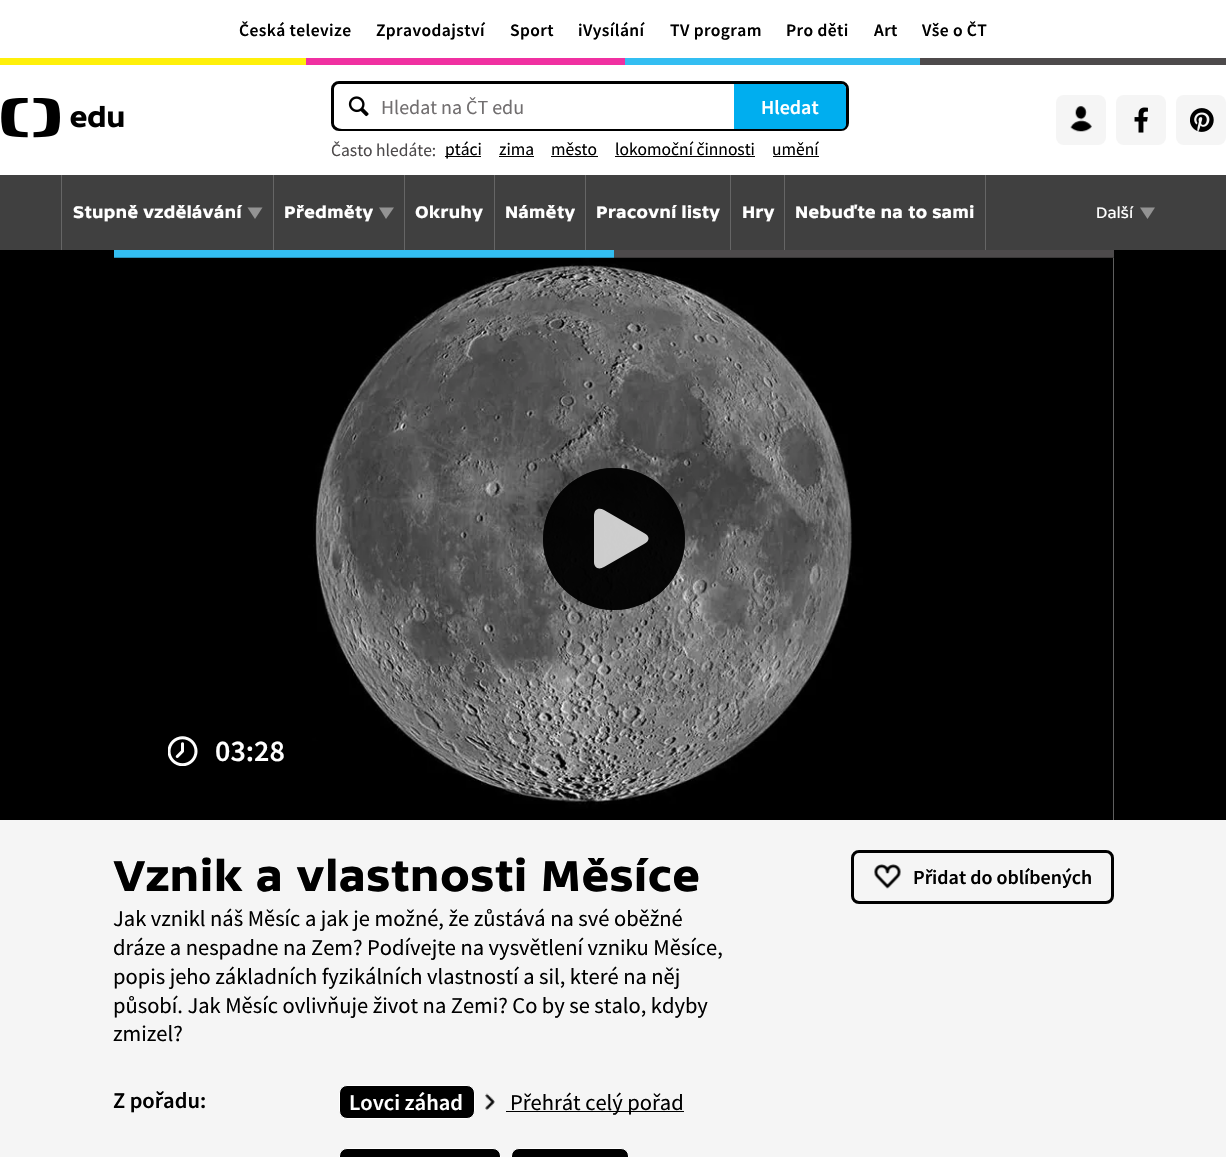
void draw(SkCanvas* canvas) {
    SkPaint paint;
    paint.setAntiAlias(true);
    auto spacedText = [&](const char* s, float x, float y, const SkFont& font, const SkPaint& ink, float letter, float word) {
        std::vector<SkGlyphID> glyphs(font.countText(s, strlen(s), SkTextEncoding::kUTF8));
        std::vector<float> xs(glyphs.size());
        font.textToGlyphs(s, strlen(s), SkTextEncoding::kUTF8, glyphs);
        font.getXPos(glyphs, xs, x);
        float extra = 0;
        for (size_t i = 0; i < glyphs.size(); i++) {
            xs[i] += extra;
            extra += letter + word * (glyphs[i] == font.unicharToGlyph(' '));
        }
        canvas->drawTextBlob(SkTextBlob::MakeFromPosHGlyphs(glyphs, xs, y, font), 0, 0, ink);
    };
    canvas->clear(0xFFFFFFFF);
    SkFont font1(fontMgr->matchFamilyStyle("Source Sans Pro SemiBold", SkFontStyle(600, SkFontStyle::kNormal_Width, SkFontStyle::kUpright_Slant)), 17.5f);
    font1.setSubpixel(true);
    paint.setColor(0xFF000000);
    spacedText("Česká televize", 239, 36, font1, paint, 0.4f, 0);
    spacedText("Zpravodajství", 376, 36, font1, paint, 0.4f, 0);
    spacedText("Sport", 510, 36, font1, paint, 0.4f, 0);
    spacedText("iVysílání", 578, 36, font1, paint, 0.4f, 0);
    spacedText("TV program", 670, 36, font1, paint, 0.4f, 0);
    spacedText("Pro děti", 786, 36, font1, paint, 0.4f, 0);
    spacedText("Art", 874, 36, font1, paint, 0.4f, 0);
    spacedText("Vše o ČT", 922, 36, font1, paint, 0.4f, 0);
    paint.setColor(0xFFFFF00A);
    canvas->drawRect(SkRect::MakeXYWH(0, 58, 306, 7), paint);
    paint.setColor(0xFFF030A1);
    canvas->drawRect(SkRect::MakeXYWH(306, 58, 319, 7), paint);
    paint.setColor(0xFF33BEF2);
    canvas->drawRect(SkRect::MakeXYWH(625, 58, 295, 7), paint);
    paint.setColor(0xFF4D4A4B);
    canvas->drawRect(SkRect::MakeXYWH(920, 58, 306, 7), paint);
    canvas->drawImageRect(SkImages::DeferredFromEncodedData(SkData::MakeFromFileName("img1.png")), SkRect::MakeXYWH(1, 98, 123, 40), SkSamplingOptions());
    paint.setStyle(SkPaint::kStroke_Style);
    paint.setStrokeWidth(3);
    paint.setColor(0xFF000000);
    canvas->drawRoundRect(SkRect::MakeXYWH(332.5f, 82.5f, 515, 47), 6.5f, 6.5f, paint);
    paint.setStyle(SkPaint::kFill_Style);
    paint.setColor(0xFFFFFFFF);
    canvas->drawPath(SkPathBuilder().moveTo(342, 84).lineTo(734, 84).lineTo(734, 129).lineTo(342, 129).cubicTo(337.5f, 129, 334, 125.5f, 334, 121).lineTo(334, 92).cubicTo(334, 87.5f, 337.5f, 84, 342, 84).close().detach(), paint);
    canvas->drawImageRect(SkImages::DeferredFromEncodedData(SkData::MakeFromFileName("img2.png")), SkRect::MakeXYWH(348, 96, 21, 21), SkSamplingOptions());
    SkFont font2(fontMgr->matchFamilyStyle("Source Sans Pro", SkFontStyle::Normal()), 20);
    font2.setSubpixel(true);
    paint.setColor(0xFF716E6F);
    canvas->drawString("Hledat na ČT edu", 381, 114, font2, paint);
    paint.setColor(0xFF00AEEF);
    canvas->drawPath(SkPathBuilder().moveTo(734, 84).lineTo(841, 84).cubicTo(844, 84, 846, 86, 846, 89).lineTo(846, 124).cubicTo(846, 127, 844, 129, 841, 129).lineTo(734, 129).close().detach(), paint);
    SkFont font3(fontMgr->matchFamilyStyle("Source Sans Pro SemiBold", SkFontStyle(600, SkFontStyle::kNormal_Width, SkFontStyle::kUpright_Slant)), 20);
    font3.setSubpixel(true);
    paint.setColor(0xFFFFFFFF);
    canvas->drawString("Hledat", 761, 114, font3, paint);
    SkFont font4(fontMgr->matchFamilyStyle("Source Sans Pro", SkFontStyle::Normal()), 17.5f);
    font4.setSubpixel(true);
    paint.setColor(0xFF4D4A4B);
    canvas->drawString("Často hledáte:", 331, 156, font4, paint);
    paint.setColor(0xFF000000);
    canvas->drawRect(SkRect::MakeXYWH(445, 156, 36, 1), paint);
    canvas->drawString("ptáci", 445, 155, font4, paint);
    canvas->drawString("zima", 499, 155, font4, paint);
    canvas->drawRect(SkRect::MakeXYWH(499, 156, 35, 1), paint);
    canvas->drawString("město", 551, 155, font4, paint);
    canvas->drawRect(SkRect::MakeXYWH(551, 156, 47, 1), paint);
    canvas->drawString("lokomoční činnosti", 615, 155, font4, paint);
    canvas->drawRect(SkRect::MakeXYWH(615, 156, 140, 1), paint);
    canvas->drawString("umění", 772, 155, font4, paint);
    canvas->drawRect(SkRect::MakeXYWH(773, 156, 46, 1), paint);
    paint.setColor(0xFFF5F5F5);
    canvas->drawRoundRect(SkRect::MakeXYWH(1056, 95, 50, 50), 8, 8, paint);
    canvas->drawImageRect(SkImages::DeferredFromEncodedData(SkData::MakeFromFileName("img3.png")), SkRect::MakeXYWH(1070, 106, 22, 26), SkSamplingOptions());
    canvas->drawRoundRect(SkRect::MakeXYWH(1116, 95, 50, 50), 8, 8, paint);
    canvas->drawImageRect(SkImages::DeferredFromEncodedData(SkData::MakeFromFileName("img4.png")), SkRect::MakeXYWH(1134, 107, 14, 26), SkSamplingOptions());
    canvas->drawRoundRect(SkRect::MakeXYWH(1176, 95, 50, 50), 8, 8, paint);
    canvas->drawImageRect(SkImages::DeferredFromEncodedData(SkData::MakeFromFileName("img5.png")), SkRect::MakeXYWH(1190, 108, 24, 24), SkSamplingOptions());
    paint.setColor(0xFF404040);
    canvas->drawRect(SkRect::MakeXYWH(0, 175, 1226, 75), paint);
    paint.setColor(0xFF666666);
    canvas->drawRect(SkRect::MakeXYWH(61, 175, 1, 75), paint);
    SkFont font5(fontMgr->matchFamilyStyle("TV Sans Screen", SkFontStyle::Bold()), 17.5f);
    font5.setSubpixel(true);
    paint.setColor(0xFFFFFFFF);
    canvas->drawString("Stupně vzdělávání", 73, 218, font5, paint);
    paint.setColor(0xFF939393);
    canvas->drawPath(SkPathBuilder().moveTo(247.5f, 207.5f).lineTo(262.5f, 207.5f).lineTo(255, 219).close().detach(), paint);
    paint.setColor(0xFF666666);
    canvas->drawRect(SkRect::MakeXYWH(273, 175, 1, 75), paint);
    paint.setColor(0xFFFFFFFF);
    canvas->drawString("Předměty", 284, 218, font5, paint);
    paint.setColor(0xFF939393);
    canvas->drawPath(SkPathBuilder().moveTo(379, 207.5f).lineTo(394, 207.5f).lineTo(386, 219).close().detach(), paint);
    paint.setColor(0xFF666666);
    canvas->drawRect(SkRect::MakeXYWH(404, 175, 1, 75), paint);
    paint.setColor(0xFFFFFFFF);
    canvas->drawString("Okruhy", 415, 218, font5, paint);
    paint.setColor(0xFF666666);
    canvas->drawRect(SkRect::MakeXYWH(494, 175, 1, 75), paint);
    paint.setColor(0xFFFFFFFF);
    canvas->drawString("Náměty", 505, 218, font5, paint);
    paint.setColor(0xFF666666);
    canvas->drawRect(SkRect::MakeXYWH(585, 175, 1, 75), paint);
    paint.setColor(0xFFFFFFFF);
    canvas->drawString("Pracovní listy", 596, 218, font5, paint);
    paint.setColor(0xFF666666);
    canvas->drawRect(SkRect::MakeXYWH(730, 175, 1, 75), paint);
    paint.setColor(0xFFFFFFFF);
    canvas->drawString("Hry", 742, 218, font5, paint);
    paint.setColor(0xFF666666);
    canvas->drawRect(SkRect::MakeXYWH(985, 175, 1, 75), paint);
    canvas->drawRect(SkRect::MakeXYWH(784, 175, 1, 75), paint);
    paint.setColor(0xFFFFFFFF);
    canvas->drawString("Nebuďte na to sami", 795, 218, font5, paint);
    SkFont font6(fontMgr->matchFamilyStyle("TV Sans Screen", SkFontStyle::Normal()), 16);
    font6.setSubpixel(true);
    canvas->drawString("Další", 1096, 218, font6, paint);
    paint.setColor(0xFF939393);
    canvas->drawPath(SkPathBuilder().moveTo(1140, 207.5f).lineTo(1155, 207.5f).lineTo(1147.5f, 219).close().detach(), paint);
    paint.setColor(0xFF000000);
    canvas->drawRect(SkRect::MakeXYWH(0, 250, 1226, 570), paint);
    paint.setColor(0xFF33BEF2);
    canvas->drawRect(SkRect::MakeXYWH(114, 250, 500, 8), paint);
    paint.setColor(0xFF4D4A4B);
    canvas->drawRect(SkRect::MakeXYWH(614, 250, 500, 8), paint);
    paint.setColor(0xFFD8D8D8);
    canvas->drawRect(SkRect::MakeXYWH(1113, 258, 1, 562), paint);
    canvas->drawImageRect(SkImages::DeferredFromEncodedData(SkData::MakeFromFileName("img6.png")), SkRect::MakeXYWH(114, 257, 1000, 563), SkSamplingOptions());
    paint.setColor(0xCC000000);
    canvas->drawCircle(614, 539, 71, paint);
    canvas->drawCircle(614, 539, 71, paint);
    paint.setColor(0xCCFFFFFF);
    canvas->drawPath(SkPathBuilder().moveTo(644, 533).lineTo(604, 510).cubicTo(599, 507, 594, 509, 594, 516).lineTo(594, 562).cubicTo(594, 568, 599, 570, 604, 567).lineTo(644, 544).cubicTo(650, 541, 650, 536, 644, 533).close().detach(), paint);
    canvas->drawImageRect(SkImages::DeferredFromEncodedData(SkData::MakeFromFileName("img7.png")), SkRect::MakeXYWH(168, 736, 30, 30), SkSamplingOptions());
    SkFont font7(fontMgr->matchFamilyStyle("Source Sans Pro SemiBold", SkFontStyle(600, SkFontStyle::kNormal_Width, SkFontStyle::kUpright_Slant)), 30);
    font7.setSubpixel(true);
    paint.setColor(0xFFFFFFFF);
    canvas->drawString("03:28", 215, 761, font7, paint);
    paint.setColor(0xFFF5F5F5);
    canvas->drawRect(SkRect::MakeXYWH(0, 820, 1226, 337), paint);
    SkFont font8(fontMgr->matchFamilyStyle("TV Sans Screen", SkFontStyle::Bold()), 45);
    font8.setSubpixel(true);
    paint.setColor(0xFF000000);
    canvas->drawString("Vznik a vlastnosti Měsíce", 113, 891, font8, paint);
    SkFont font9(fontMgr->matchFamilyStyle("Source Sans Pro", SkFontStyle::Normal()), 22.5f);
    font9.setSubpixel(true);
    canvas->drawString("Jak vznikl náš Měsíc a jak je možné, že zůstává na své oběžné", 113, 926, font9, paint);
    canvas->drawString("dráze a nespadne na Zem? Podívejte na vysvětlení vzniku Měsíce,", 113, 955, font9, paint);
    canvas->drawString("popis jeho základních fyzikálních vlastností a sil, které na něj", 113, 984, font9, paint);
    canvas->drawString("působí. Jak Měsíc ovlivňuje život na Zemi? Co by se stalo, kdyby", 113, 1013, font9, paint);
    canvas->drawString("zmizel?", 113, 1041, font9, paint);
    SkFont font10(fontMgr->matchFamilyStyle("Source Sans Pro SemiBold", SkFontStyle(600, SkFontStyle::kNormal_Width, SkFontStyle::kUpright_Slant)), 22.5f);
    font10.setSubpixel(true);
    canvas->drawString("Z pořadu:", 113, 1108, font10, paint);
    canvas->drawRoundRect(SkRect::MakeXYWH(339.5f, 1085.5f, 135, 33), 7.5f, 7.5f, paint);
    paint.setStyle(SkPaint::kStroke_Style);
    paint.setStrokeWidth(1);
    paint.setColor(0xFFFFFFFF);
    canvas->drawRoundRect(SkRect::MakeXYWH(339.5f, 1085.5f, 135, 33), 7.5f, 7.5f, paint);
    paint.setStyle(SkPaint::kFill_Style);
    canvas->drawString("Lovci záhad", 349, 1110, font10, paint);
    canvas->drawImageRect(SkImages::DeferredFromEncodedData(SkData::MakeFromFileName("img8.png")), SkRect::MakeXYWH(485, 1093, 10, 17), SkSamplingOptions());
    paint.setColor(0xFF000000);
    canvas->drawRect(SkRect::MakeXYWH(506, 1111, 178, 1), paint);
    canvas->drawString("Přehrát celý pořad", 510, 1110, font9, paint);
    canvas->drawRoundRect(SkRect::MakeXYWH(339.5f, 1148.5f, 161, 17), 7.5f, 7.5f, paint);
    paint.setStyle(SkPaint::kStroke_Style);
    paint.setColor(0xFFFFFFFF);
    canvas->drawRoundRect(SkRect::MakeXYWH(339.5f, 1148.5f, 161, 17), 7.5f, 7.5f, paint);
    paint.setStyle(SkPaint::kFill_Style);
    paint.setColor(0xFF000000);
    canvas->drawRoundRect(SkRect::MakeXYWH(511.5f, 1148.5f, 117, 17), 7.5f, 7.5f, paint);
    paint.setStyle(SkPaint::kStroke_Style);
    paint.setColor(0xFFFFFFFF);
    canvas->drawRoundRect(SkRect::MakeXYWH(511.5f, 1148.5f, 117, 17), 7.5f, 7.5f, paint);
    paint.setStrokeWidth(3);
    paint.setColor(0xFF000000);
    canvas->drawRoundRect(SkRect::MakeXYWH(852.5f, 851.5f, 260, 51), 6.5f, 6.5f, paint);
    canvas->drawImageRect(SkImages::DeferredFromEncodedData(SkData::MakeFromFileName("img9.png")), SkRect::MakeXYWH(874, 864, 27, 25), SkSamplingOptions());
    paint.setStyle(SkPaint::kFill_Style);
    canvas->drawString("Přidat do oblíbených", 913, 884, font3, paint);
}
